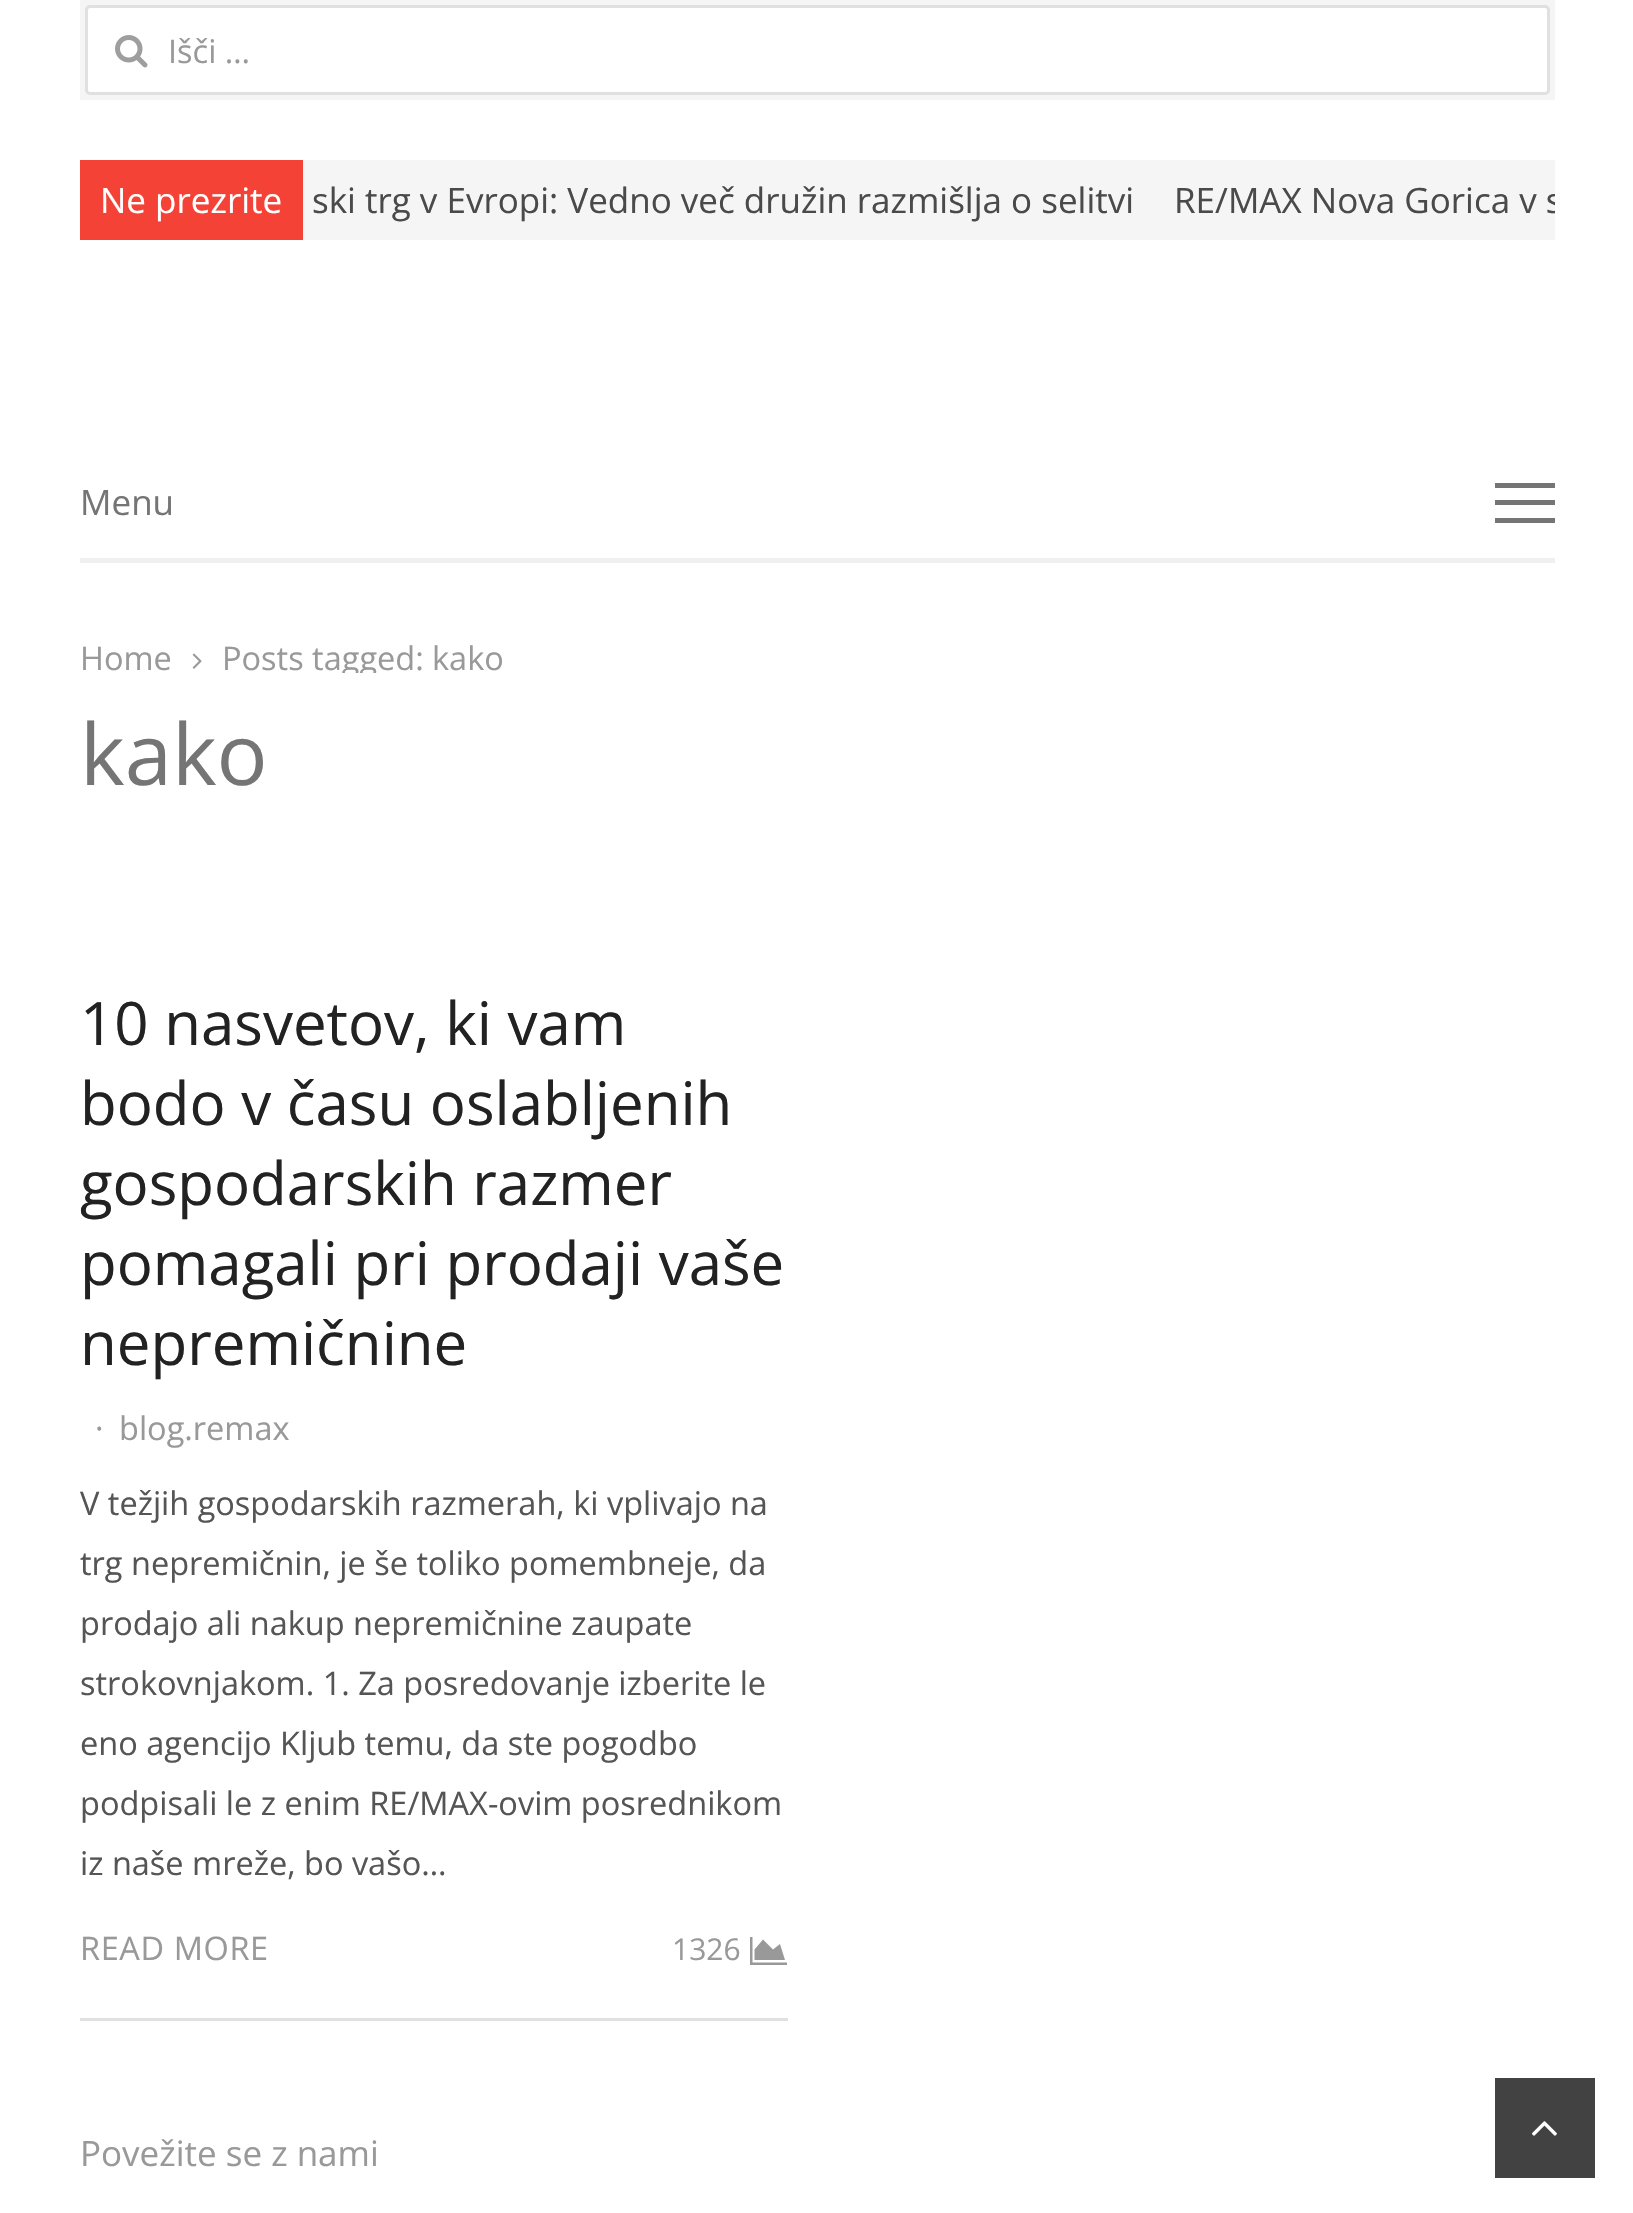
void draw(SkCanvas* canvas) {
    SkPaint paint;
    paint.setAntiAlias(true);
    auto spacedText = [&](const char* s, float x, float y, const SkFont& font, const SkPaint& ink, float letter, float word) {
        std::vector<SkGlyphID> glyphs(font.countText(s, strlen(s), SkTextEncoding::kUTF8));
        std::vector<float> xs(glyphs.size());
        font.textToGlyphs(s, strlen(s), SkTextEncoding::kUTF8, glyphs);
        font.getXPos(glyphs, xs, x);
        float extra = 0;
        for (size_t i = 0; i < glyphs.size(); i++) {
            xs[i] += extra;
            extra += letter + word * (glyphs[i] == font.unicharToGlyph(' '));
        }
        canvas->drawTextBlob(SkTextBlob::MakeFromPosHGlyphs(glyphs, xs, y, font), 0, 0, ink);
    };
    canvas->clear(0xFFFFFFFF);
    paint.setColor(0xFFF5F5F5);
    canvas->drawRect(SkRect::MakeXYWH(80, 0, 1475, 100), paint);
    paint.setColor(0xFFFFFFFF);
    canvas->drawRoundRect(SkRect::MakeXYWH(85, 5, 1465, 90), 5, 5, paint);
    paint.setStyle(SkPaint::kStroke_Style);
    paint.setStrokeWidth(3);
    paint.setColor(0x1F000000);
    canvas->drawRoundRect(SkRect::MakeXYWH(86.5f, 6.5f, 1462, 87), 3.5f, 3.5f, paint);
    canvas->drawImageRect(SkImages::DeferredFromEncodedData(SkData::MakeFromFileName("img1.png")), SkRect::MakeXYWH(115, 35, 33, 33), SkSamplingOptions());
    SkFont font1(fontMgr->matchFamilyStyle("Open Sans", SkFontStyle::Normal()), 32.5f);
    font1.setSubpixel(true);
    paint.setStyle(SkPaint::kFill_Style);
    paint.setColor(0xFF999999);
    canvas->drawString("Išči …", 168, 63, font1, paint);
    paint.setColor(0xFFF44336);
    canvas->drawRect(SkRect::MakeXYWH(80, 160, 223, 80), paint);
    SkFont font2(fontMgr->matchFamilyStyle("Open Sans", SkFontStyle::Normal()), 35);
    font2.setSubpixel(true);
    paint.setColor(0xFFFFFFFF);
    canvas->drawString("Ne prezrite", 100, 213, font2, paint);
    paint.setColor(0xFFF5F5F5);
    canvas->drawRect(SkRect::MakeXYWH(303, 160, 1252, 80), paint);
    paint.setColor(0xFF4A4A4A);
    canvas->drawString("ski trg v Evropi: Vedno več družin razmišlja o selitvi", 312, 213, font2, paint);
    canvas->save();
    canvas->clipRect(SkRect::MakeXYWH(80, 160, 1475, 80));
    canvas->drawString("RE/MAX Nova Gorica v s", 1174, 213, font2, paint);
    canvas->restore();
    paint.setColor(0xFFF0F0F0);
    canvas->drawRect(SkRect::MakeXYWH(80, 558, 1475, 5), paint);
    paint.setColor(0xFF757575);
    canvas->drawString("Menu", 80, 515, font2, paint);
    canvas->drawRect(SkRect::MakeXYWH(1495, 483, 60, 5), paint);
    canvas->drawRect(SkRect::MakeXYWH(1495, 500, 60, 5), paint);
    canvas->drawRect(SkRect::MakeXYWH(1495, 518, 60, 5), paint);
    paint.setColor(0xFF999999);
    canvas->drawString("Home", 80, 670, font1, paint);
    canvas->drawImageRect(SkImages::DeferredFromEncodedData(SkData::MakeFromFileName("img2.png")), SkRect::MakeXYWH(192, 653, 10, 16), SkSamplingOptions());
    canvas->save();
    canvas->clipRect(SkRect::MakeXYWH(80, 623, 1475, 50));
    canvas->drawString("Posts tagged:", 222, 670, font1, paint);
    canvas->restore();
    canvas->drawString("kako", 432, 670, font1, paint);
    SkFont font3(fontMgr->matchFamilyStyle("Open Sans", SkFontStyle::Normal()), 85);
    font3.setSubpixel(true);
    paint.setColor(0xFF757575);
    canvas->drawString("kako", 80, 785, font3, paint);
    SkFont font4(fontMgr->matchFamilyStyle("Open Sans", SkFontStyle::Normal()), 60);
    font4.setSubpixel(true);
    paint.setColor(0xFF222222);
    canvas->drawString("10 nasvetov, ki vam", 80, 1045, font4, paint);
    canvas->drawString("bodo v času oslabljenih", 80, 1125, font4, paint);
    canvas->drawString("gospodarskih razmer", 80, 1205, font4, paint);
    canvas->drawString("pomagali pri prodaji vaše", 80, 1285, font4, paint);
    canvas->drawString("nepremičnine", 80, 1365, font4, paint);
    paint.setColor(0xFF999999);
    canvas->drawString("·", 95, 1440, font1, paint);
    canvas->drawString("blog.remax", 119, 1440, font1, paint);
    paint.setColor(0xFF555555);
    canvas->drawString("V težjih gospodarskih razmerah, ki vplivajo na", 80, 1515, font1, paint);
    canvas->drawString("trg nepremičnin, je še toliko pomembneje, da", 80, 1575, font1, paint);
    canvas->drawString("prodajo ali nakup nepremičnine zaupate", 80, 1635, font1, paint);
    canvas->drawString("strokovnjakom. 1. Za posredovanje izberite le", 80, 1695, font1, paint);
    canvas->drawString("eno agencijo Kljub temu, da ste pogodbo", 80, 1755, font1, paint);
    canvas->drawString("podpisali le z enim RE/MAX-ovim posrednikom", 80, 1815, font1, paint);
    canvas->drawString("iz naše mreže, bo vašo…", 80, 1875, font1, paint);
    paint.setColor(0xFF999999);
    spacedText("READ MORE", 80, 1960, font1, paint, 0.6f, 0);
    SkFont font5(fontMgr->matchFamilyStyle("Open Sans", SkFontStyle::Normal()), 30);
    font5.setSubpixel(true);
    canvas->drawString("1326", 672, 1960, font5, paint);
    canvas->drawPath(SkPathBuilder().moveTo(787, 1962.5f).lineTo(752.5f, 1962.5f).lineTo(752.5f, 1937).lineTo(750, 1937).lineTo(750, 1965).lineTo(787, 1965).close().moveTo(780, 1944).lineTo(773, 1949.5f).lineTo(763, 1939.5f).lineTo(754.5f, 1949.5f).lineTo(754.5f, 1960).lineTo(785, 1960).close().detach(), paint);
    paint.setColor(0xFFE0E0E0);
    canvas->drawRect(SkRect::MakeXYWH(80, 2018, 708, 3), paint);
    paint.setColor(0xFF999999);
    canvas->drawString("Povežite se z nami", 80, 2166, font2, paint);
    paint.setColor(0xFF424242);
    canvas->drawRect(SkRect::MakeXYWH(1495, 2078, 100, 100), paint);
    canvas->drawImageRect(SkImages::DeferredFromEncodedData(SkData::MakeFromFileName("img3.png")), SkRect::MakeXYWH(1532, 2121, 25, 15), SkSamplingOptions());
}
